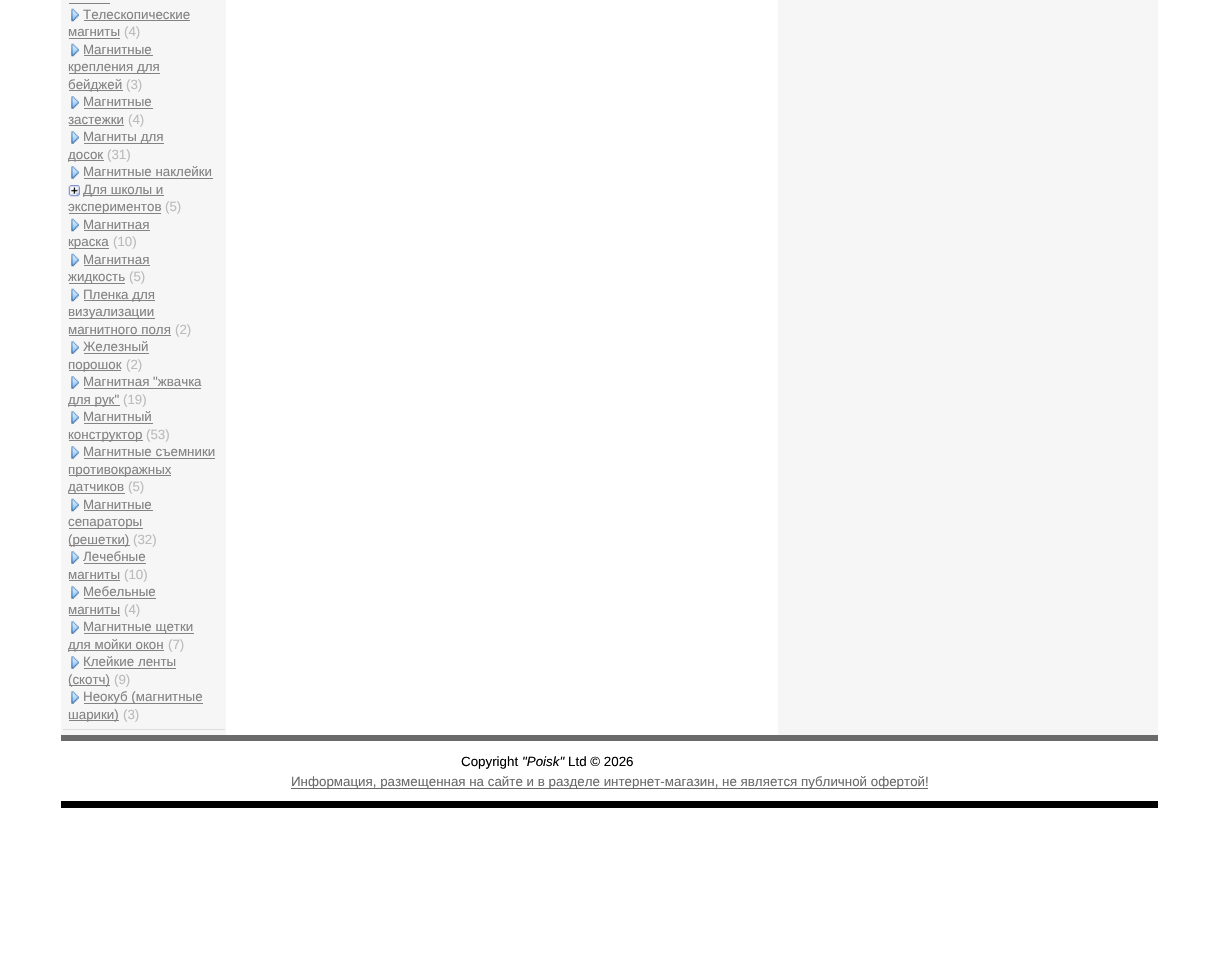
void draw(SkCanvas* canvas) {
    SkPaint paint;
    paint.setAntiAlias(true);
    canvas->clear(0xFFFFFFFF);
    paint.setColor(0xFFF6F6F6);
    canvas->drawRect(SkRect::MakeXYWH(61, 0, 165, 735), paint);
    paint.setColor(0xFFDDDDDD);
    canvas->drawRect(SkRect::MakeXYWH(63, 729, 162, 1), paint);
    paint.setColor(0xFF838383);
    canvas->drawRect(SkRect::MakeXYWH(69, 3, 41, 1), paint);
    canvas->drawImageRect(SkImages::DeferredFromEncodedData(SkData::MakeFromFileName("img1.png")), SkRect::MakeXYWH(71, 8, 8, 14), SkSamplingOptions());
    SkFont font1(fontMgr->matchFamilyStyle("Liberation Sans", SkFontStyle::Normal()), 13.35f);
    font1.setSubpixel(true);
    canvas->drawString("Телескопические", 83, 19, font1, paint);
    canvas->drawRect(SkRect::MakeXYWH(84, 20, 106, 1), paint);
    canvas->drawString("магниты", 68, 36, font1, paint);
    canvas->drawRect(SkRect::MakeXYWH(69, 38, 51, 1), paint);
    paint.setColor(0xFFBBBBBB);
    canvas->drawString("(4)", 124, 36, font1, paint);
    canvas->drawImageRect(SkImages::DeferredFromEncodedData(SkData::MakeFromFileName("img1.png")), SkRect::MakeXYWH(71, 43, 8, 14), SkSamplingOptions());
    paint.setColor(0xFF838383);
    canvas->drawString("Магнитные", 83, 54, font1, paint);
    canvas->drawRect(SkRect::MakeXYWH(84, 55, 69, 1), paint);
    canvas->drawRect(SkRect::MakeXYWH(69, 73, 91, 1), paint);
    canvas->drawString("крепления для", 68, 71, font1, paint);
    canvas->drawRect(SkRect::MakeXYWH(69, 90, 54, 1), paint);
    canvas->drawString("бейджей", 68, 89, font1, paint);
    paint.setColor(0xFFBBBBBB);
    canvas->drawString("(3)", 126, 89, font1, paint);
    canvas->drawImageRect(SkImages::DeferredFromEncodedData(SkData::MakeFromFileName("img2.png")), SkRect::MakeXYWH(71, 96, 8, 13), SkSamplingOptions());
    paint.setColor(0xFF838383);
    canvas->drawString("Магнитные", 83, 106, font1, paint);
    canvas->drawRect(SkRect::MakeXYWH(84, 108, 69, 1), paint);
    canvas->drawString("застежки", 68, 124, font1, paint);
    canvas->drawRect(SkRect::MakeXYWH(69, 125, 55, 1), paint);
    paint.setColor(0xFFBBBBBB);
    canvas->drawString("(4)", 128, 124, font1, paint);
    canvas->drawImageRect(SkImages::DeferredFromEncodedData(SkData::MakeFromFileName("img2.png")), SkRect::MakeXYWH(71, 131, 8, 13), SkSamplingOptions());
    paint.setColor(0xFF838383);
    canvas->drawRect(SkRect::MakeXYWH(84, 143, 80, 1), paint);
    canvas->drawString("Магниты для", 83, 141, font1, paint);
    canvas->drawRect(SkRect::MakeXYWH(69, 160, 35, 1), paint);
    canvas->drawString("досок", 68, 159, font1, paint);
    paint.setColor(0xFFBBBBBB);
    canvas->drawString("(31)", 107, 159, font1, paint);
    canvas->drawImageRect(SkImages::DeferredFromEncodedData(SkData::MakeFromFileName("img2.png")), SkRect::MakeXYWH(71, 166, 8, 13), SkSamplingOptions());
    paint.setColor(0xFF838383);
    canvas->drawString("Магнитные наклейки", 83, 176, font1, paint);
    canvas->drawRect(SkRect::MakeXYWH(84, 178, 129, 1), paint);
    canvas->drawImageRect(SkImages::DeferredFromEncodedData(SkData::MakeFromFileName("img3.png")), SkRect::MakeXYWH(68, 185, 12, 12), SkSamplingOptions());
    canvas->drawRect(SkRect::MakeXYWH(84, 195, 80, 1), paint);
    canvas->drawString("Для школы и", 83, 194, font1, paint);
    canvas->drawRect(SkRect::MakeXYWH(69, 213, 92, 1), paint);
    canvas->drawString("экспериментов", 68, 211, font1, paint);
    paint.setColor(0xFFBBBBBB);
    canvas->drawString("(5)", 165, 211, font1, paint);
    canvas->drawImageRect(SkImages::DeferredFromEncodedData(SkData::MakeFromFileName("img1.png")), SkRect::MakeXYWH(71, 218, 8, 14), SkSamplingOptions());
    paint.setColor(0xFF838383);
    canvas->drawString("Магнитная", 83, 229, font1, paint);
    canvas->drawRect(SkRect::MakeXYWH(84, 230, 66, 1), paint);
    canvas->drawRect(SkRect::MakeXYWH(69, 248, 40, 1), paint);
    canvas->drawString("краска", 68, 246, font1, paint);
    paint.setColor(0xFFBBBBBB);
    canvas->drawString("(10)", 113, 246, font1, paint);
    canvas->drawImageRect(SkImages::DeferredFromEncodedData(SkData::MakeFromFileName("img1.png")), SkRect::MakeXYWH(71, 253, 8, 14), SkSamplingOptions());
    paint.setColor(0xFF838383);
    canvas->drawString("Магнитная", 83, 264, font1, paint);
    canvas->drawRect(SkRect::MakeXYWH(84, 265, 66, 1), paint);
    canvas->drawRect(SkRect::MakeXYWH(69, 283, 56, 1), paint);
    canvas->drawString("жидкость", 68, 281, font1, paint);
    paint.setColor(0xFFBBBBBB);
    canvas->drawString("(5)", 129, 281, font1, paint);
    canvas->drawImageRect(SkImages::DeferredFromEncodedData(SkData::MakeFromFileName("img1.png")), SkRect::MakeXYWH(71, 288, 8, 14), SkSamplingOptions());
    paint.setColor(0xFF838383);
    canvas->drawRect(SkRect::MakeXYWH(84, 300, 71, 1), paint);
    canvas->drawString("Пленка для", 83, 299, font1, paint);
    canvas->drawRect(SkRect::MakeXYWH(69, 318, 86, 1), paint);
    canvas->drawString("визуализации", 68, 316, font1, paint);
    canvas->drawString("магнитного поля", 68, 334, font1, paint);
    canvas->drawRect(SkRect::MakeXYWH(69, 335, 102, 1), paint);
    paint.setColor(0xFFBBBBBB);
    canvas->drawString("(2)", 175, 334, font1, paint);
    canvas->drawImageRect(SkImages::DeferredFromEncodedData(SkData::MakeFromFileName("img2.png")), SkRect::MakeXYWH(71, 341, 8, 13), SkSamplingOptions());
    paint.setColor(0xFF838383);
    canvas->drawString("Железный", 83, 351, font1, paint);
    canvas->drawRect(SkRect::MakeXYWH(84, 353, 65, 1), paint);
    canvas->drawRect(SkRect::MakeXYWH(69, 370, 52, 1), paint);
    canvas->drawString("порошок", 68, 369, font1, paint);
    paint.setColor(0xFFBBBBBB);
    canvas->drawString("(2)", 126, 369, font1, paint);
    canvas->drawImageRect(SkImages::DeferredFromEncodedData(SkData::MakeFromFileName("img2.png")), SkRect::MakeXYWH(71, 376, 8, 13), SkSamplingOptions());
    paint.setColor(0xFF838383);
    canvas->drawString("Магнитная \"жвачка", 83, 386, font1, paint);
    canvas->drawRect(SkRect::MakeXYWH(84, 388, 117, 1), paint);
    canvas->drawRect(SkRect::MakeXYWH(69, 405, 51, 1), paint);
    canvas->drawString("для рук\"", 68, 404, font1, paint);
    paint.setColor(0xFFBBBBBB);
    canvas->drawString("(19)", 123, 404, font1, paint);
    canvas->drawImageRect(SkImages::DeferredFromEncodedData(SkData::MakeFromFileName("img2.png")), SkRect::MakeXYWH(71, 411, 8, 13), SkSamplingOptions());
    paint.setColor(0xFF838383);
    canvas->drawString("Магнитный", 83, 421, font1, paint);
    canvas->drawRect(SkRect::MakeXYWH(84, 423, 69, 1), paint);
    canvas->drawRect(SkRect::MakeXYWH(69, 440, 74, 1), paint);
    canvas->drawString("конструктор", 68, 439, font1, paint);
    paint.setColor(0xFFBBBBBB);
    canvas->drawString("(53)", 146, 439, font1, paint);
    canvas->drawImageRect(SkImages::DeferredFromEncodedData(SkData::MakeFromFileName("img2.png")), SkRect::MakeXYWH(71, 446, 8, 13), SkSamplingOptions());
    paint.setColor(0xFF838383);
    canvas->drawString("Магнитные съемники", 83, 456, font1, paint);
    canvas->drawRect(SkRect::MakeXYWH(84, 458, 131, 1), paint);
    canvas->drawRect(SkRect::MakeXYWH(69, 475, 102, 1), paint);
    canvas->drawString("противокражных", 68, 474, font1, paint);
    canvas->drawRect(SkRect::MakeXYWH(69, 493, 56, 1), paint);
    canvas->drawString("датчиков", 68, 491, font1, paint);
    paint.setColor(0xFFBBBBBB);
    canvas->drawString("(5)", 128, 491, font1, paint);
    canvas->drawImageRect(SkImages::DeferredFromEncodedData(SkData::MakeFromFileName("img1.png")), SkRect::MakeXYWH(71, 498, 8, 14), SkSamplingOptions());
    paint.setColor(0xFF838383);
    canvas->drawString("Магнитные", 83, 509, font1, paint);
    canvas->drawRect(SkRect::MakeXYWH(84, 510, 69, 1), paint);
    canvas->drawRect(SkRect::MakeXYWH(69, 528, 74, 1), paint);
    canvas->drawString("сепараторы", 68, 526, font1, paint);
    canvas->drawRect(SkRect::MakeXYWH(69, 545, 61, 1), paint);
    canvas->drawString("(решетки)", 68, 544, font1, paint);
    paint.setColor(0xFFBBBBBB);
    canvas->drawString("(32)", 133, 544, font1, paint);
    canvas->drawImageRect(SkImages::DeferredFromEncodedData(SkData::MakeFromFileName("img2.png")), SkRect::MakeXYWH(71, 551, 8, 13), SkSamplingOptions());
    paint.setColor(0xFF838383);
    canvas->drawString("Лечебные", 83, 561, font1, paint);
    canvas->drawRect(SkRect::MakeXYWH(84, 563, 62, 1), paint);
    canvas->drawString("магниты", 68, 579, font1, paint);
    canvas->drawRect(SkRect::MakeXYWH(69, 580, 51, 1), paint);
    paint.setColor(0xFFBBBBBB);
    canvas->drawString("(10)", 124, 579, font1, paint);
    canvas->drawImageRect(SkImages::DeferredFromEncodedData(SkData::MakeFromFileName("img2.png")), SkRect::MakeXYWH(71, 586, 8, 13), SkSamplingOptions());
    paint.setColor(0xFF838383);
    canvas->drawString("Мебельные", 83, 596, font1, paint);
    canvas->drawRect(SkRect::MakeXYWH(84, 598, 72, 1), paint);
    canvas->drawString("магниты", 68, 614, font1, paint);
    canvas->drawRect(SkRect::MakeXYWH(69, 615, 51, 1), paint);
    paint.setColor(0xFFBBBBBB);
    canvas->drawString("(4)", 124, 614, font1, paint);
    canvas->drawImageRect(SkImages::DeferredFromEncodedData(SkData::MakeFromFileName("img2.png")), SkRect::MakeXYWH(71, 621, 8, 13), SkSamplingOptions());
    paint.setColor(0xFF838383);
    canvas->drawRect(SkRect::MakeXYWH(84, 633, 110, 1), paint);
    canvas->drawString("Магнитные щетки", 83, 631, font1, paint);
    canvas->drawRect(SkRect::MakeXYWH(69, 650, 95, 1), paint);
    canvas->drawString("для мойки окон", 68, 649, font1, paint);
    paint.setColor(0xFFBBBBBB);
    canvas->drawString("(7)", 168, 649, font1, paint);
    canvas->drawImageRect(SkImages::DeferredFromEncodedData(SkData::MakeFromFileName("img2.png")), SkRect::MakeXYWH(71, 656, 8, 13), SkSamplingOptions());
    paint.setColor(0xFF838383);
    canvas->drawString("Клейкие ленты", 83, 666, font1, paint);
    canvas->drawRect(SkRect::MakeXYWH(84, 668, 92, 1), paint);
    canvas->drawRect(SkRect::MakeXYWH(69, 685, 41, 1), paint);
    canvas->drawString("(скотч)", 68, 684, font1, paint);
    paint.setColor(0xFFBBBBBB);
    canvas->drawString("(9)", 114, 684, font1, paint);
    canvas->drawImageRect(SkImages::DeferredFromEncodedData(SkData::MakeFromFileName("img2.png")), SkRect::MakeXYWH(71, 691, 8, 13), SkSamplingOptions());
    paint.setColor(0xFF838383);
    canvas->drawRect(SkRect::MakeXYWH(84, 703, 119, 1), paint);
    canvas->drawString("Неокуб (магнитные", 83, 701, font1, paint);
    canvas->drawRect(SkRect::MakeXYWH(69, 720, 50, 1), paint);
    canvas->drawString("шарики)", 68, 719, font1, paint);
    paint.setColor(0xFFBBBBBB);
    canvas->drawString("(3)", 123, 719, font1, paint);
    paint.setColor(0xFFF6F6F6);
    canvas->drawRect(SkRect::MakeXYWH(778, 0, 380, 735), paint);
    paint.setColor(0xFF6B6B6B);
    canvas->drawRect(SkRect::MakeXYWH(61, 735, 1097, 6), paint);
    paint.setColor(0xFF000000);
    canvas->drawRect(SkRect::MakeXYWH(61, 801, 1097, 7), paint);
    canvas->drawString("Copyright", 461, 766, font1, paint);
    SkFont font2(fontMgr->matchFamilyStyle("Liberation Sans", SkFontStyle::Italic()), 13.35f);
    font2.setSubpixel(true);
    canvas->drawString("\"Poisk\"", 522, 766, font2, paint);
    canvas->drawString("Ltd © 2026", 568, 766, font1, paint);
    paint.setColor(0xFF6B6B6B);
    canvas->drawRect(SkRect::MakeXYWH(291, 788, 637, 1), paint);
    canvas->drawString("Информация, размещенная на сайте и в разделе интернет-магазин, не является публичной офертой!", 291, 786, font1, paint);
}
